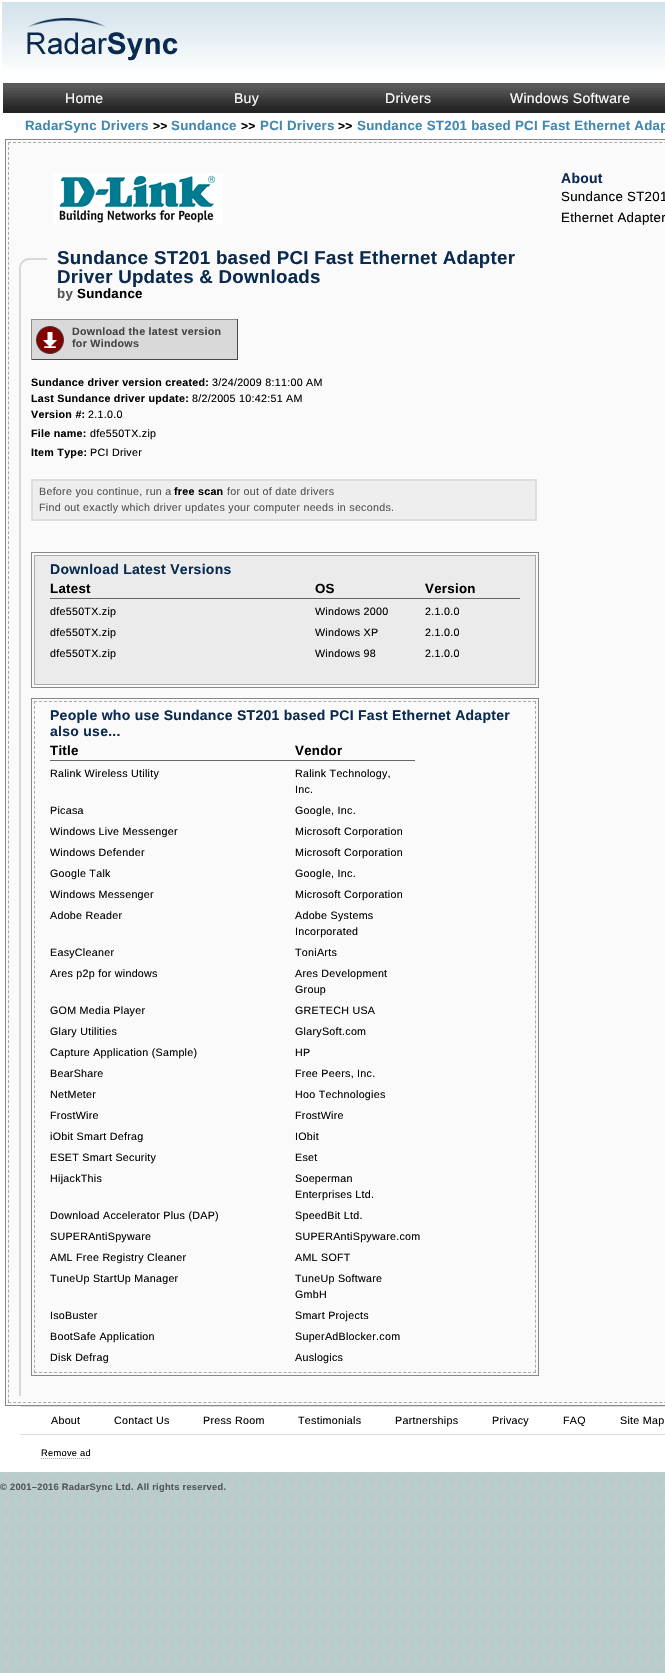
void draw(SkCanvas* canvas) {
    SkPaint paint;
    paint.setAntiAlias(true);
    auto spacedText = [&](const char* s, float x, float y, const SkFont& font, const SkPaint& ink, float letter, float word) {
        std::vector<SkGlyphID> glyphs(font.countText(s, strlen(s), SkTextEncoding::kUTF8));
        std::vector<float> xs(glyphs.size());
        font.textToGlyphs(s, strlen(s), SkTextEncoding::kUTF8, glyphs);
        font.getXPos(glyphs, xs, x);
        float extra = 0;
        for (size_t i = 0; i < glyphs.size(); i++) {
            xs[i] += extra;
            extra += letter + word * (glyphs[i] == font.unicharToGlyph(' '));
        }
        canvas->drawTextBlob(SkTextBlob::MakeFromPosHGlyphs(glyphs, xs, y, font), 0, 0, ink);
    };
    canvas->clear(0xFFB7CECD);
    canvas->drawImageRect(SkImages::DeferredFromEncodedData(SkData::MakeFromFileName("img1.png")), SkRect::MakeXYWH(4, 1472, 661, 201), SkSamplingOptions());
    paint.setColor(0xFFFFFFFF);
    canvas->drawRect(SkRect::MakeXYWH(0, 70, 665, 1402), paint);
    canvas->drawImageRect(SkImages::DeferredFromEncodedData(SkData::MakeFromFileName("img2.png")), SkRect::MakeXYWH(2, 2, 663, 68), SkSamplingOptions());
    paint.setStyle(SkPaint::kStroke_Style);
    paint.setStrokeWidth(2);
    canvas->drawRect(SkRect::MakeXYWH(1, 1, 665, 81), paint);
    canvas->drawImageRect(SkImages::DeferredFromEncodedData(SkData::MakeFromFileName("img3.png")), SkRect::MakeXYWH(27, 18, 151, 43), SkSamplingOptions());
    canvas->drawImageRect(SkImages::DeferredFromEncodedData(SkData::MakeFromFileName("img4.png")), SkRect::MakeXYWH(3, 83, 662, 30), SkSamplingOptions());
    SkFont font1(fontMgr->matchFamilyStyle("Liberation Sans", SkFontStyle::Normal()), 14);
    font1.setSubpixel(true);
    paint.setStyle(SkPaint::kFill_Style);
    spacedText("Home", 65, 103, font1, paint, 0.27f, 0);
    spacedText("Buy", 234, 103, font1, paint, 0.27f, 0);
    spacedText("Drivers", 385, 103, font1, paint, 0.27f, 0);
    spacedText("Windows Software", 510, 103, font1, paint, 0.27f, 0);
    SkFont font2(fontMgr->matchFamilyStyle("Liberation Sans", SkFontStyle::Bold()), 13.3f);
    font2.setSubpixel(true);
    paint.setColor(0xFF4387AE);
    spacedText("RadarSync Drivers", 25, 130, font2, paint, 0.27f, 0);
    SkFont font3(fontMgr->matchFamilyStyle("Liberation Sans", SkFontStyle::Bold()), 12);
    font3.setSubpixel(true);
    paint.setColor(0xFF000000);
    spacedText(">>", 153, 130, font3, paint, 0.27f, 0);
    paint.setColor(0xFF4387AE);
    spacedText("Sundance", 171, 130, font2, paint, 0.27f, 0);
    paint.setColor(0xFF000000);
    spacedText(">>", 241, 130, font3, paint, 0.27f, 0);
    paint.setColor(0xFF4387AE);
    spacedText("PCI Drivers", 260, 130, font2, paint, 0.27f, 0);
    paint.setColor(0xFF000000);
    spacedText(">>", 338, 130, font3, paint, 0.27f, 0);
    paint.setColor(0xFF4387AE);
    spacedText("Sundance ST201 based PCI Fast Ethernet Adap", 357, 130, font2, paint, 0.27f, 0);
    paint.setColor(0xFFFAFAFA);
    canvas->drawRect(SkRect::MakeXYWH(5.5f, 139.5f, 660, 1266), paint);
    paint.setStyle(SkPaint::kStroke_Style);
    paint.setStrokeWidth(1);
    paint.setColor(0xFF888888);
    canvas->drawRect(SkRect::MakeXYWH(5.5f, 139.5f, 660, 1266), paint);
    paint.setColor(0xFFAAAAAA);
    paint.setPathEffect(SkDashPathEffect::Make({{3, 2.01f}}, 0));
    canvas->drawPath(SkPathBuilder().moveTo(8, 142.5f).lineTo(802, 142.5f).detach(), paint);
    paint.setPathEffect(nullptr);
    paint.setPathEffect(SkDashPathEffect::Make({{3, 2.01f}}, 0));
    canvas->drawPath(SkPathBuilder().moveTo(8, 1402.5f).lineTo(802, 1402.5f).detach(), paint);
    paint.setPathEffect(nullptr);
    paint.setPathEffect(SkDashPathEffect::Make({{3, 1.99f}}, 0));
    canvas->drawPath(SkPathBuilder().moveTo(8.5f, 142).lineTo(8.5f, 1403).detach(), paint);
    paint.setPathEffect(nullptr);
    SkFont font4(fontMgr->matchFamilyStyle("Liberation Sans", SkFontStyle::Bold()), 14);
    font4.setSubpixel(true);
    paint.setStyle(SkPaint::kFill_Style);
    paint.setColor(0xFF0A2A50);
    spacedText("About", 561, 183, font4, paint, 0.27f, 0);
    SkFont font5(fontMgr->matchFamilyStyle("Liberation Sans", SkFontStyle::Normal()), 13.3f);
    font5.setSubpixel(true);
    paint.setColor(0xFF000000);
    spacedText("Sundance ST201", 561, 201, font5, paint, 0.27f, 0);
    spacedText("Ethernet Adapter", 561, 222, font5, paint, 0.27f, 0);
    canvas->drawImageRect(SkImages::DeferredFromEncodedData(SkData::MakeFromFileName("img5.png")), SkRect::MakeXYWH(53, 173, 170, 51), SkSamplingOptions());
    canvas->drawImageRect(SkImages::DeferredFromEncodedData(SkData::MakeFromFileName("img6.png")), SkRect::MakeXYWH(19, 258, 28, 55), SkSamplingOptions());
    SkFont font6(fontMgr->matchFamilyStyle("Liberation Sans", SkFontStyle::Bold()), 18.7f);
    font6.setSubpixel(true);
    paint.setColor(0xFF0A2A50);
    spacedText("Sundance ST201 based PCI Fast Ethernet Adapter", 57, 264, font6, paint, 0.27f, 0);
    spacedText("Driver Updates & Downloads", 57, 283, font6, paint, 0.27f, 0);
    paint.setColor(0xFF545454);
    spacedText("by", 57, 298, font2, paint, 0.27f, 0);
    paint.setColor(0xFF000000);
    spacedText("Sundance", 77, 298, font2, paint, 0.27f, 0);
    paint.setColor(0xFFD8D8D8);
    canvas->drawRect(SkRect::MakeXYWH(19, 313, 2, 1083), paint);
    paint.setColor(0xFFD9D9D9);
    canvas->drawRect(SkRect::MakeXYWH(32, 320, 205, 39), paint);
    canvas->drawImageRect(SkImages::DeferredFromEncodedData(SkData::MakeFromFileName("img7.png")), SkRect::MakeXYWH(36, 326, 28, 28), SkSamplingOptions());
    paint.setColor(0xFF8E8E8E);
    canvas->drawRect(SkRect::MakeXYWH(31, 319, 207, 1), paint);
    paint.setColor(0xFF494949);
    canvas->drawRect(SkRect::MakeXYWH(237, 319, 1, 41), paint);
    canvas->drawRect(SkRect::MakeXYWH(31, 359, 207, 1), paint);
    paint.setColor(0xFF8E8E8E);
    canvas->drawRect(SkRect::MakeXYWH(31, 319, 1, 41), paint);
    SkFont font7(fontMgr->matchFamilyStyle("Liberation Sans", SkFontStyle::Bold()), 10.7f);
    font7.setSubpixel(true);
    paint.setColor(0xFF444444);
    spacedText("Download the latest version", 72, 335, font7, paint, 0.27f, 0);
    spacedText("for Windows", 72, 347, font7, paint, 0.27f, 0);
    paint.setColor(0xFF000000);
    spacedText("Sundance driver version created:", 31, 386, font7, paint, 0.27f, 0);
    SkFont font8(fontMgr->matchFamilyStyle("Liberation Sans", SkFontStyle::Normal()), 10.7f);
    font8.setSubpixel(true);
    spacedText("3/24/2009 8:11:00 AM", 212, 386, font8, paint, 0.27f, 0);
    spacedText("Last Sundance driver update:", 31, 402, font7, paint, 0.27f, 0);
    spacedText("8/2/2005 10:42:51 AM", 192, 402, font8, paint, 0.27f, 0);
    spacedText("Version #:", 31, 418, font7, paint, 0.27f, 0);
    spacedText("2.1.0.0", 88, 418, font8, paint, 0.27f, 0);
    spacedText("File name:", 31, 437, font7, paint, 0.27f, 0);
    spacedText("dfe550TX.zip", 90, 437, font8, paint, 0.27f, 0);
    spacedText("Item Type:", 31, 456, font7, paint, 0.27f, 0);
    spacedText("PCI Driver", 90, 456, font8, paint, 0.27f, 0);
    paint.setColor(0xFFEEEEEE);
    canvas->drawRect(SkRect::MakeXYWH(32, 480, 504, 40), paint);
    paint.setStyle(SkPaint::kStroke_Style);
    paint.setStrokeWidth(2);
    paint.setColor(0xFFDDDDDD);
    canvas->drawRect(SkRect::MakeXYWH(32, 480, 504, 40), paint);
    paint.setStyle(SkPaint::kFill_Style);
    paint.setColor(0xFF545454);
    spacedText("Before you continue, run a", 39, 495, font8, paint, 0.27f, 0);
    paint.setColor(0xFF000000);
    spacedText("free scan", 174, 495, font7, paint, 0.27f, 0);
    paint.setColor(0xFF545454);
    spacedText("for out of date drivers", 227, 495, font8, paint, 0.27f, 0);
    spacedText("Find out exactly which driver updates your computer needs in seconds.", 39, 511, font8, paint, 0.27f, 0);
    paint.setStyle(SkPaint::kStroke_Style);
    paint.setStrokeWidth(1);
    paint.setColor(0xFF888888);
    canvas->drawRect(SkRect::MakeXYWH(31.5f, 552.5f, 507, 135), paint);
    paint.setStyle(SkPaint::kFill_Style);
    paint.setColor(0xFFEBEBEB);
    canvas->drawRect(SkRect::MakeXYWH(34.5f, 555.5f, 501, 129), paint);
    paint.setStyle(SkPaint::kStroke_Style);
    paint.setColor(0xFFAAAAAA);
    canvas->drawRect(SkRect::MakeXYWH(34.5f, 555.5f, 501, 129), paint);
    paint.setStyle(SkPaint::kFill_Style);
    paint.setColor(0xFF0A2A50);
    spacedText("Download Latest Versions", 50, 574, font4, paint, 0.27f, 0);
    paint.setColor(0xFF666666);
    canvas->drawRect(SkRect::MakeXYWH(50, 598, 470, 1), paint);
    paint.setColor(0xFF000000);
    spacedText("Latest", 50, 593, font2, paint, 0.27f, 0);
    spacedText("OS", 315, 593, font2, paint, 0.27f, 0);
    spacedText("Version", 425, 593, font2, paint, 0.27f, 0);
    spacedText("dfe550TX.zip", 50, 615, font8, paint, 0.27f, 0);
    spacedText("Windows 2000", 315, 615, font8, paint, 0.27f, 0);
    spacedText("2.1.0.0", 425, 615, font8, paint, 0.27f, 0);
    spacedText("dfe550TX.zip", 50, 636, font8, paint, 0.27f, 0);
    spacedText("Windows XP", 315, 636, font8, paint, 0.27f, 0);
    spacedText("2.1.0.0", 425, 636, font8, paint, 0.27f, 0);
    spacedText("dfe550TX.zip", 50, 657, font8, paint, 0.27f, 0);
    spacedText("Windows 98", 315, 657, font8, paint, 0.27f, 0);
    spacedText("2.1.0.0", 425, 657, font8, paint, 0.27f, 0);
    paint.setStyle(SkPaint::kStroke_Style);
    paint.setColor(0xFF888888);
    canvas->drawRect(SkRect::MakeXYWH(31.5f, 698.5f, 507, 677), paint);
    paint.setColor(0xFFAAAAAA);
    paint.setPathEffect(SkDashPathEffect::Make({{3, 1.99f}}, 0));
    canvas->drawPath(SkPathBuilder().moveTo(34, 701.5f).lineTo(536, 701.5f).detach(), paint);
    paint.setPathEffect(nullptr);
    paint.setPathEffect(SkDashPathEffect::Make({{3, 1.99f}}, 0));
    canvas->drawPath(SkPathBuilder().moveTo(535.5f, 701).lineTo(535.5f, 1373).detach(), paint);
    paint.setPathEffect(nullptr);
    paint.setPathEffect(SkDashPathEffect::Make({{3, 1.99f}}, 0));
    canvas->drawPath(SkPathBuilder().moveTo(34, 1372.5f).lineTo(536, 1372.5f).detach(), paint);
    paint.setPathEffect(nullptr);
    paint.setPathEffect(SkDashPathEffect::Make({{3, 1.99f}}, 0));
    canvas->drawPath(SkPathBuilder().moveTo(34.5f, 701).lineTo(34.5f, 1373).detach(), paint);
    paint.setPathEffect(nullptr);
    paint.setStyle(SkPaint::kFill_Style);
    paint.setColor(0xFF0A2A50);
    spacedText("People who use Sundance ST201 based PCI Fast Ethernet Adapter", 50, 720, font4, paint, 0.27f, 0);
    spacedText("also use...", 50, 736, font4, paint, 0.27f, 0);
    paint.setColor(0xFF666666);
    canvas->drawRect(SkRect::MakeXYWH(50, 760, 365, 1), paint);
    paint.setColor(0xFF000000);
    spacedText("Title", 50, 755, font2, paint, 0.27f, 0);
    spacedText("Vendor", 295, 755, font2, paint, 0.27f, 0);
    spacedText("Ralink Wireless Utility", 50, 777, font8, paint, 0.27f, 0);
    spacedText("Ralink Technology,", 295, 777, font8, paint, 0.27f, 0);
    spacedText("Inc.", 295, 793, font8, paint, 0.27f, 0);
    spacedText("Picasa", 50, 814, font8, paint, 0.27f, 0);
    spacedText("Google, Inc.", 295, 814, font8, paint, 0.27f, 0);
    spacedText("Windows Live Messenger", 50, 835, font8, paint, 0.27f, 0);
    spacedText("Microsoft Corporation", 295, 835, font8, paint, 0.27f, 0);
    spacedText("Windows Defender", 50, 856, font8, paint, 0.27f, 0);
    spacedText("Microsoft Corporation", 295, 856, font8, paint, 0.27f, 0);
    spacedText("Google Talk", 50, 877, font8, paint, 0.27f, 0);
    spacedText("Google, Inc.", 295, 877, font8, paint, 0.27f, 0);
    spacedText("Windows Messenger", 50, 898, font8, paint, 0.27f, 0);
    spacedText("Microsoft Corporation", 295, 898, font8, paint, 0.27f, 0);
    spacedText("Adobe Reader", 50, 919, font8, paint, 0.27f, 0);
    spacedText("Adobe Systems", 295, 919, font8, paint, 0.27f, 0);
    spacedText("Incorporated", 295, 935, font8, paint, 0.27f, 0);
    spacedText("EasyCleaner", 50, 956, font8, paint, 0.27f, 0);
    spacedText("ToniArts", 295, 956, font8, paint, 0.27f, 0);
    spacedText("Ares p2p for windows", 50, 977, font8, paint, 0.27f, 0);
    spacedText("Ares Development", 295, 977, font8, paint, 0.27f, 0);
    spacedText("Group", 295, 993, font8, paint, 0.27f, 0);
    spacedText("GOM Media Player", 50, 1014, font8, paint, 0.27f, 0);
    spacedText("GRETECH USA", 295, 1014, font8, paint, 0.27f, 0);
    spacedText("Glary Utilities", 50, 1035, font8, paint, 0.27f, 0);
    spacedText("GlarySoft.com", 295, 1035, font8, paint, 0.27f, 0);
    spacedText("Capture Application (Sample)", 50, 1056, font8, paint, 0.27f, 0);
    spacedText("HP", 295, 1056, font8, paint, 0.27f, 0);
    spacedText("BearShare", 50, 1077, font8, paint, 0.27f, 0);
    spacedText("Free Peers, Inc.", 295, 1077, font8, paint, 0.27f, 0);
    spacedText("NetMeter", 50, 1098, font8, paint, 0.27f, 0);
    spacedText("Hoo Technologies", 295, 1098, font8, paint, 0.27f, 0);
    spacedText("FrostWire", 50, 1119, font8, paint, 0.27f, 0);
    spacedText("FrostWire", 295, 1119, font8, paint, 0.27f, 0);
    spacedText("iObit Smart Defrag", 50, 1140, font8, paint, 0.27f, 0);
    spacedText("IObit", 295, 1140, font8, paint, 0.27f, 0);
    spacedText("ESET Smart Security", 50, 1161, font8, paint, 0.27f, 0);
    spacedText("Eset", 295, 1161, font8, paint, 0.27f, 0);
    spacedText("HijackThis", 50, 1182, font8, paint, 0.27f, 0);
    spacedText("Soeperman", 295, 1182, font8, paint, 0.27f, 0);
    spacedText("Enterprises Ltd.", 295, 1198, font8, paint, 0.27f, 0);
    spacedText("Download Accelerator Plus (DAP)", 50, 1219, font8, paint, 0.27f, 0);
    spacedText("SpeedBit Ltd.", 295, 1219, font8, paint, 0.27f, 0);
    spacedText("SUPERAntiSpyware", 50, 1240, font8, paint, 0.27f, 0);
    spacedText("SUPERAntiSpyware.com", 295, 1240, font8, paint, 0.27f, 0);
    spacedText("AML Free Registry Cleaner", 50, 1261, font8, paint, 0.27f, 0);
    spacedText("AML SOFT", 295, 1261, font8, paint, 0.27f, 0);
    spacedText("TuneUp StartUp Manager", 50, 1282, font8, paint, 0.27f, 0);
    spacedText("TuneUp Software", 295, 1282, font8, paint, 0.27f, 0);
    spacedText("GmbH", 295, 1298, font8, paint, 0.27f, 0);
    spacedText("IsoBuster", 50, 1319, font8, paint, 0.27f, 0);
    spacedText("Smart Projects", 295, 1319, font8, paint, 0.27f, 0);
    spacedText("BootSafe Application", 50, 1340, font8, paint, 0.27f, 0);
    spacedText("SuperAdBlocker.com", 295, 1340, font8, paint, 0.27f, 0);
    spacedText("Disk Defrag", 50, 1361, font8, paint, 0.27f, 0);
    spacedText("Auslogics", 295, 1361, font8, paint, 0.27f, 0);
    paint.setColor(0xFFDDDDDD);
    canvas->drawRect(SkRect::MakeXYWH(20, 1406, 645, 1), paint);
    canvas->drawRect(SkRect::MakeXYWH(20, 1434, 645, 1), paint);
    paint.setColor(0xFF000000);
    spacedText("About", 51, 1424, font8, paint, 0.27f, 0);
    spacedText("Contact Us", 114, 1424, font8, paint, 0.27f, 0);
    spacedText("Press Room", 203, 1424, font8, paint, 0.27f, 0);
    spacedText("Testimonials", 298, 1424, font8, paint, 0.27f, 0);
    spacedText("Partnerships", 395, 1424, font8, paint, 0.27f, 0);
    spacedText("Privacy", 492, 1424, font8, paint, 0.27f, 0);
    spacedText("FAQ", 563, 1424, font8, paint, 0.27f, 0);
    spacedText("Site Map", 620, 1424, font8, paint, 0.27f, 0);
    SkFont font9(fontMgr->matchFamilyStyle("Liberation Sans", SkFontStyle::Normal()), 9.3f);
    font9.setSubpixel(true);
    spacedText("Remove ad", 41, 1456, font9, paint, 0.27f, 0);
    paint.setStyle(SkPaint::kStroke_Style);
    paint.setColor(0xFFAAAAAA);
    paint.setPathEffect(SkDashPathEffect::Make({{1, 1}}, 0));
    canvas->drawPath(SkPathBuilder().moveTo(41, 1458.5f).lineTo(91, 1458.5f).detach(), paint);
    paint.setPathEffect(nullptr);
    SkFont font10(fontMgr->matchFamilyStyle("Liberation Sans", SkFontStyle::Bold()), 9.3f);
    font10.setSubpixel(true);
    paint.setStyle(SkPaint::kFill_Style);
    paint.setColor(0xFF545454);
    spacedText("© 2001–2016 RadarSync Ltd. All rights reserved.", 0, 1490, font10, paint, 0.27f, 0);
}
